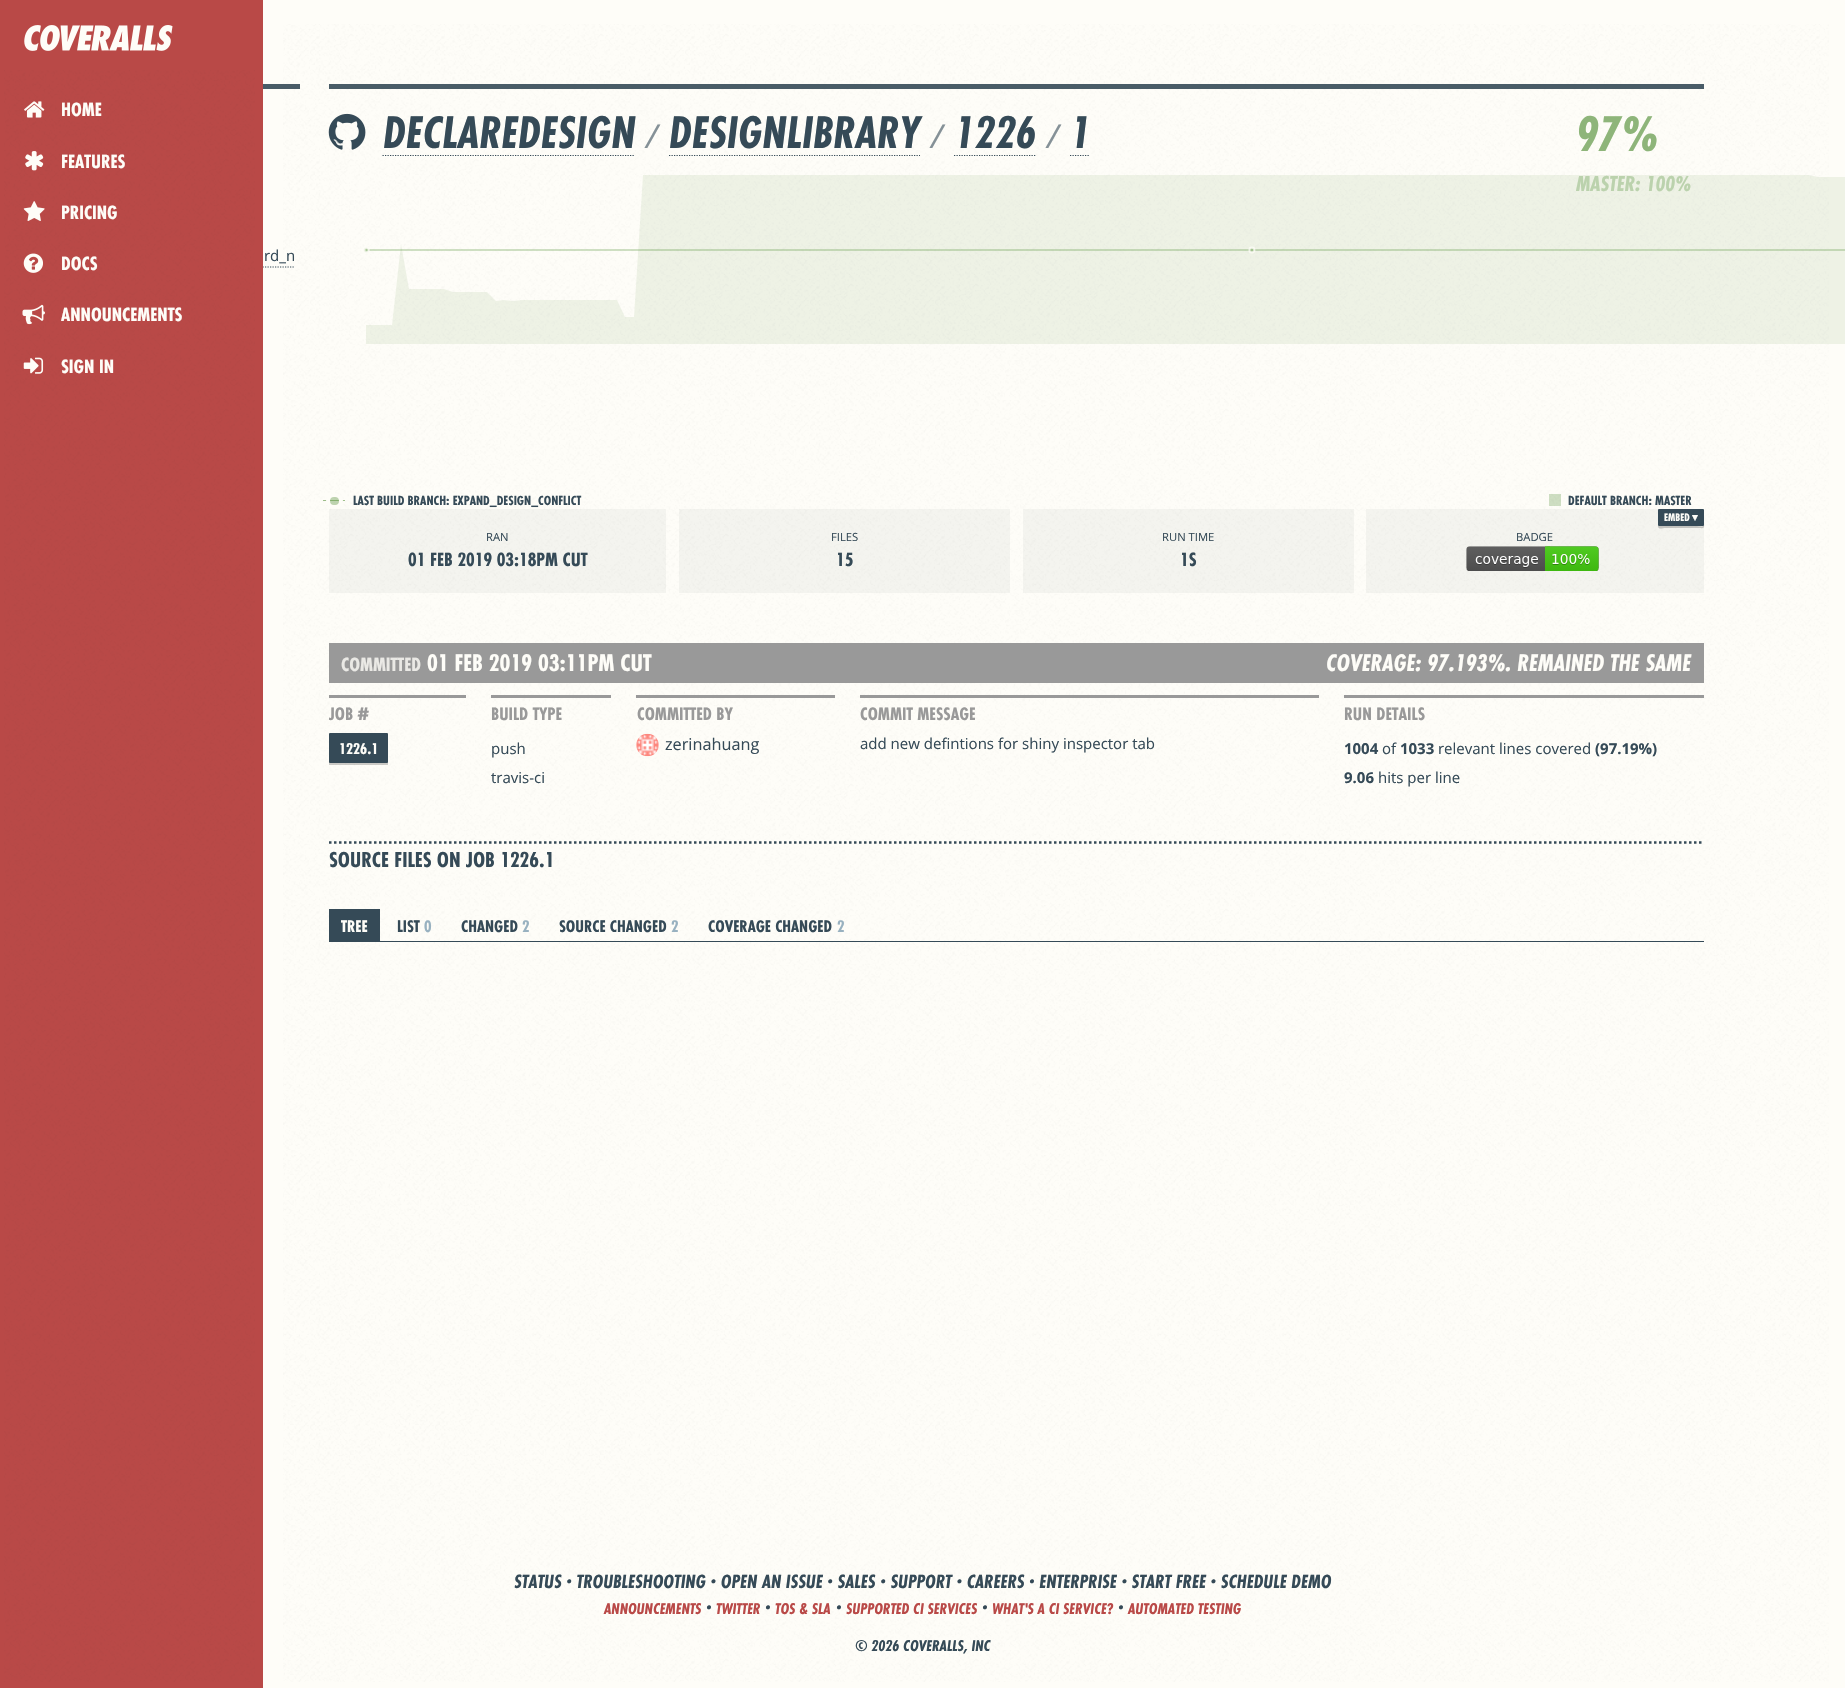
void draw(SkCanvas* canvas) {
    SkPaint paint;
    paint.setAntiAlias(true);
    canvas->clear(0xFFFEFDF8);
    paint.setColor(0xFFCEDEC2);
    canvas->drawRect(SkRect::MakeXYWH(1549, 494, 12, 12), paint);
    paint.setColor(0xFF9FC08C);
    canvas->drawRect(SkRect::MakeXYWH(323, 500, 22, 1), paint);
    canvas->drawImageRect(SkImages::DeferredFromEncodedData(SkData::MakeFromFileName("img1.png")), SkRect::MakeXYWH(283, 24, 1546, 1658), SkSamplingOptions());
    paint.setStyle(SkPaint::kStroke_Style);
    paint.setStrokeWidth(1.2f);
    paint.setColor(0xFF354A57);
    paint.setPathEffect(SkDashPathEffect::Make({{1.25f, 1.25f}}, 0));
    canvas->drawPath(SkPathBuilder().moveTo(122.5f, 267).lineTo(295, 267).detach(), paint);
    paint.setPathEffect(nullptr);
    paint.setStyle(SkPaint::kFill_Style);
    paint.setColor(0xFFB94947);
    canvas->drawRect(SkRect::MakeXYWH(0, 0, 263, 1688), paint);
    canvas->drawImageRect(SkImages::DeferredFromEncodedData(SkData::MakeFromFileName("img2.png")), SkRect::MakeXYWH(4, 70, 251, 1612), SkSamplingOptions());
    canvas->drawImageRect(SkImages::DeferredFromEncodedData(SkData::MakeFromFileName("img3.png")), SkRect::MakeXYWH(24, 25, 149, 26), SkSamplingOptions());
    canvas->drawImageRect(SkImages::DeferredFromEncodedData(SkData::MakeFromFileName("img4.png")), SkRect::MakeXYWH(24, 101, 21, 17), SkSamplingOptions());
    SkFont font1(fontMgr->matchFamilyStyle("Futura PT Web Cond", SkFontStyle::Bold()), 20);
    font1.setSubpixel(true);
    paint.setColor(0xFFFEFDF8);
    canvas->drawString("HOME", 61, 116, font1, paint);
    canvas->drawImageRect(SkImages::DeferredFromEncodedData(SkData::MakeFromFileName("img5.png")), SkRect::MakeXYWH(25, 151, 19, 20), SkSamplingOptions());
    canvas->drawString("FEATURES", 61, 168, font1, paint);
    canvas->drawImageRect(SkImages::DeferredFromEncodedData(SkData::MakeFromFileName("img6.png")), SkRect::MakeXYWH(23, 201, 22, 20), SkSamplingOptions());
    canvas->drawString("PRICING", 61, 219, font1, paint);
    canvas->drawImageRect(SkImages::DeferredFromEncodedData(SkData::MakeFromFileName("img7.png")), SkRect::MakeXYWH(23, 253, 20, 20), SkSamplingOptions());
    canvas->drawString("DOCS", 61, 270, font1, paint);
    canvas->drawImageRect(SkImages::DeferredFromEncodedData(SkData::MakeFromFileName("img8.png")), SkRect::MakeXYWH(22, 304, 23, 21), SkSamplingOptions());
    canvas->drawString("ANNOUNCEMENTS", 61, 321, font1, paint);
    canvas->drawImageRect(SkImages::DeferredFromEncodedData(SkData::MakeFromFileName("img9.png")), SkRect::MakeXYWH(23, 357, 21, 17), SkSamplingOptions());
    canvas->drawString("SIGN IN", 61, 373, font1, paint);
    paint.setColor(0xE6354A57);
    canvas->drawRect(SkRect::MakeXYWH(263, 84, 37, 5), paint);
    SkFont font2(fontMgr->matchFamilyStyle("Open Sans", SkFontStyle::Normal()), 15);
    font2.setSubpixel(true);
    paint.setColor(0xFF354A57);
    canvas->drawString("rd_n", 264, 261, font2, paint);
    paint.setColor(0xE6354A57);
    canvas->drawRect(SkRect::MakeXYWH(329, 84, 1375, 5), paint);
    canvas->drawImageRect(SkImages::DeferredFromEncodedData(SkData::MakeFromFileName("img10.png")), SkRect::MakeXYWH(328, 113, 38, 37), SkSamplingOptions());
    paint.setStyle(SkPaint::kStroke_Style);
    paint.setColor(0xFF354A57);
    paint.setPathEffect(SkDashPathEffect::Make({{1.25f, 1.25f}}, 0));
    canvas->drawPath(SkPathBuilder().moveTo(382.5f, 155.5f).lineTo(635, 155.5f).detach(), paint);
    paint.setPathEffect(nullptr);
    SkFont font3(fontMgr->matchFamilyStyle("Futura PT Web Cond", SkFontStyle::BoldItalic()), 47.5f);
    font3.setSubpixel(true);
    paint.setStyle(SkPaint::kFill_Style);
    canvas->drawString("DECLAREDESIGN", 383, 148, font3, paint);
    SkFont font4(fontMgr->matchFamilyStyle("Open Sans", SkFontStyle::Italic()), 33);
    font4.setSubpixel(true);
    paint.setColor(0xFF859197);
    canvas->drawString("/", 646, 148, font4, paint);
    paint.setStyle(SkPaint::kStroke_Style);
    paint.setColor(0xFF354A57);
    paint.setPathEffect(SkDashPathEffect::Make({{1.25f, 1.25f}}, 0));
    canvas->drawPath(SkPathBuilder().moveTo(669, 155.5f).lineTo(920, 155.5f).detach(), paint);
    paint.setPathEffect(nullptr);
    paint.setStyle(SkPaint::kFill_Style);
    canvas->drawString("DESIGNLIBRARY", 669, 148, font3, paint);
    paint.setColor(0xFF859197);
    canvas->drawString("/", 931, 148, font4, paint);
    paint.setStyle(SkPaint::kStroke_Style);
    paint.setColor(0xFF354A57);
    paint.setPathEffect(SkDashPathEffect::Make({{1.25f, 1.25f}}, 0));
    canvas->drawPath(SkPathBuilder().moveTo(954, 155.5f).lineTo(1036, 155.5f).detach(), paint);
    paint.setPathEffect(nullptr);
    paint.setStyle(SkPaint::kFill_Style);
    canvas->drawString("1226", 954, 148, font3, paint);
    paint.setColor(0xFF859197);
    canvas->drawString("/", 1047, 148, font4, paint);
    paint.setStyle(SkPaint::kStroke_Style);
    paint.setColor(0xFF354A57);
    paint.setPathEffect(SkDashPathEffect::Make({{1.25f, 1.25f}}, 0));
    canvas->drawPath(SkPathBuilder().moveTo(1070, 155.5f).lineTo(1090, 155.5f).detach(), paint);
    paint.setPathEffect(nullptr);
    paint.setStyle(SkPaint::kFill_Style);
    canvas->drawString("1", 1070, 148, font3, paint);
    SkFont font5(fontMgr->matchFamilyStyle("Futura PT Web Cond", SkFontStyle::BoldItalic()), 52);
    font5.setSubpixel(true);
    paint.setColor(0xFF8EB57A);
    canvas->drawString("97%", 1576, 151, font5, paint);
    paint.setColor(0x1A5F9744);
    canvas->drawPath(SkPathBuilder().moveTo(366, 325).lineTo(392, 325).lineTo(401, 244).lineTo(409, 289).lineTo(418, 289).lineTo(444, 289).lineTo(453, 292).lineTo(487, 292).lineTo(496, 301).lineTo(504, 300).lineTo(513, 301).lineTo(522, 300).lineTo(539, 300).lineTo(617, 300).lineTo(625, 317).lineTo(634, 317).lineTo(643, 175).lineTo(1809, 175).lineTo(1818, 177).lineTo(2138, 177).lineTo(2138, 344).lineTo(366, 344).close().detach(), paint);
    SkFont font6(fontMgr->matchFamilyStyle("Futura PT Web Cond", SkFontStyle::BoldItalic()), 22.5f);
    font6.setSubpixel(true);
    paint.setColor(0xFFBBD2AD);
    canvas->drawString("MASTER: 100%", 1576, 191, font6, paint);
    paint.setStyle(SkPaint::kStroke_Style);
    paint.setColor(0x995F9744);
    canvas->drawPath(SkPathBuilder().moveTo(366, 250).lineTo(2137.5f, 250).detach(), paint);
    paint.setStyle(SkPaint::kFill_Style);
    paint.setColor(0x525F9744);
    canvas->drawCircle(366.2f, 250, 2.5f, paint);
    paint.setStyle(SkPaint::kStroke_Style);
    paint.setStrokeWidth(1.9f);
    paint.setColor(0xCCFEFDF8);
    canvas->drawCircle(366.2f, 250, 2.5f, paint);
    paint.setStyle(SkPaint::kFill_Style);
    paint.setColor(0x525F9744);
    canvas->drawCircle(1251.9f, 250, 2.5f, paint);
    paint.setStyle(SkPaint::kStroke_Style);
    paint.setColor(0xCCFEFDF8);
    canvas->drawCircle(1251.9f, 250, 2.5f, paint);
    paint.setStyle(SkPaint::kFill_Style);
    paint.setColor(0x665F9744);
    canvas->drawRoundRect(SkRect::MakeXYWH(328, 495, 13, 12), 6, 6, paint);
    paint.setStyle(SkPaint::kStroke_Style);
    paint.setStrokeWidth(4);
    paint.setColor(0xFFFEFDF8);
    canvas->drawRoundRect(SkRect::MakeXYWH(328, 495, 13, 12), 6, 6, paint);
    SkFont font7(fontMgr->matchFamilyStyle("Futura PT Web Cond", SkFontStyle::Bold()), 13.75f);
    font7.setSubpixel(true);
    paint.setStyle(SkPaint::kFill_Style);
    paint.setColor(0xFF354A57);
    canvas->drawString("LAST BUILD BRANCH: EXPAND_DESIGN_CONFLICT", 353, 505, font7, paint);
    canvas->drawString("DEFAULT BRANCH: MASTER", 1568, 505, font7, paint);
    paint.setColor(0x0D354A57);
    canvas->drawRect(SkRect::MakeXYWH(1366, 509, 338, 84), paint);
    paint.setColor(0x33000000);
    canvas->drawPath(SkPathBuilder().moveTo(1658, 526).cubicTo(1658, 530, 1662, 528, 1666, 528).lineTo(1696, 528).cubicTo(1706, 528, 1704, 530, 1704, 519).lineTo(1704, 510).lineTo(1704, 523).cubicTo(1704, 528, 1702, 526, 1695, 526).close().detach(), paint);
    paint.setColor(0xFF354A57);
    canvas->drawRoundRect(SkRect::MakeXYWH(1658, 509, 46, 17), 1, 1, paint);
    SkFont font8(fontMgr->matchFamilyStyle("Futura PT Web Cond", SkFontStyle::Bold()), 11.25f);
    font8.setSubpixel(true);
    paint.setColor(0xFFFEFDF8);
    canvas->drawString("EMBED", 1664, 521, font8, paint);
    SkFont font9(fontMgr->matchFamilyStyle("DejaVu Sans", SkFontStyle::Bold()), 11.25f);
    font9.setSubpixel(true);
    canvas->drawString("▾", 1692, 521, font9, paint);
    canvas->drawImageRect(SkImages::DeferredFromEncodedData(SkData::MakeFromFileName("img11.png")), SkRect::MakeXYWH(1466, 546, 133, 25), SkSamplingOptions());
    SkFont font10(fontMgr->matchFamilyStyle("Open Sans", SkFontStyle::Normal()), 11.25f);
    font10.setSubpixel(true);
    paint.setColor(0xFF354A57);
    canvas->drawString("BADGE", 1516, 541, font10, paint);
    paint.setColor(0x0D354A57);
    canvas->drawRect(SkRect::MakeXYWH(329, 509, 337, 84), paint);
    paint.setColor(0xFF354A57);
    canvas->drawString("RAN", 486, 541, font10, paint);
    canvas->drawString("01 FEB 2019 03:18PM CUT", 408, 566, font1, paint);
    paint.setColor(0x0D354A57);
    canvas->drawRect(SkRect::MakeXYWH(679, 509, 331, 84), paint);
    paint.setColor(0xFF354A57);
    canvas->drawString("FILES", 831, 541, font10, paint);
    canvas->drawString("15", 836, 566, font1, paint);
    paint.setColor(0x0D354A57);
    canvas->drawRect(SkRect::MakeXYWH(1023, 509, 331, 84), paint);
    paint.setColor(0xFF354A57);
    canvas->drawString("RUN TIME", 1162, 541, font10, paint);
    canvas->drawString("1S", 1180, 566, font1, paint);
    paint.setColor(0xFF999999);
    canvas->drawRect(SkRect::MakeXYWH(329, 643, 1375, 40), paint);
    paint.setColor(0xFFEAE9E5);
    canvas->drawString("COMMITTED", 341, 671, font1, paint);
    SkFont font11(fontMgr->matchFamilyStyle("Futura PT Web Cond", SkFontStyle::Bold()), 25);
    font11.setSubpixel(true);
    paint.setColor(0xFFFEFDF8);
    canvas->drawString("01 FEB 2019 03:11PM CUT", 427, 671, font11, paint);
    SkFont font12(fontMgr->matchFamilyStyle("Futura PT Web Cond", SkFontStyle::BoldItalic()), 25);
    font12.setSubpixel(true);
    canvas->drawString("COVERAGE: 97.193%. REMAINED THE SAME", 1326, 671, font12, paint);
    paint.setColor(0xFF999999);
    canvas->drawRect(SkRect::MakeXYWH(329, 695, 137, 3), paint);
    SkFont font13(fontMgr->matchFamilyStyle("Futura PT Web Cond", SkFontStyle::Bold()), 18.75f);
    font13.setSubpixel(true);
    canvas->drawString("JOB #", 329, 720, font13, paint);
    paint.setColor(0x33000000);
    canvas->drawPath(SkPathBuilder().moveTo(329, 762).lineTo(329, 764).cubicTo(329, 765, 329, 765, 330, 765).lineTo(387, 765).cubicTo(388, 765, 388, 765, 388, 764).lineTo(388, 736).lineTo(388, 735).lineTo(388, 761).cubicTo(388, 762, 387, 762, 386, 762).lineTo(330, 762).close().detach(), paint);
    paint.setColor(0xFF354A57);
    canvas->drawRoundRect(SkRect::MakeXYWH(329, 733, 59, 30), 1, 1, paint);
    SkFont font14(fontMgr->matchFamilyStyle("Futura PT Web Cond", SkFontStyle::Bold()), 16.25f);
    font14.setSubpixel(true);
    paint.setColor(0xFFFEFDF8);
    canvas->drawString("1226.1", 339, 754, font14, paint);
    paint.setColor(0xFF999999);
    canvas->drawRect(SkRect::MakeXYWH(491, 695, 120, 3), paint);
    canvas->drawString("BUILD TYPE", 491, 720, font13, paint);
    paint.setColor(0xFF354A57);
    canvas->drawString("push", 491, 754, font2, paint);
    canvas->drawString("travis-ci", 491, 783, font2, paint);
    paint.setColor(0xFF999999);
    canvas->drawRect(SkRect::MakeXYWH(636, 695, 199, 3), paint);
    canvas->drawString("COMMITTED BY", 637, 720, font13, paint);
    canvas->drawImageRect(SkImages::DeferredFromEncodedData(SkData::MakeFromFileName("img12.png")), SkRect::MakeXYWH(636, 733, 23, 24), SkSamplingOptions());
    SkFont font15(fontMgr->matchFamilyStyle("Open Sans", SkFontStyle::Normal()), 16.25f);
    font15.setSubpixel(true);
    paint.setColor(0xFF354A57);
    canvas->drawString("zerinahuang", 665, 750, font15, paint);
    paint.setColor(0xFF999999);
    canvas->drawRect(SkRect::MakeXYWH(860, 695, 459, 3), paint);
    canvas->drawString("COMMIT MESSAGE", 860, 720, font13, paint);
    paint.setColor(0xFF354A57);
    canvas->drawString("add new defintions for shiny inspector tab", 860, 749, font2, paint);
    paint.setColor(0xFF999999);
    canvas->drawRect(SkRect::MakeXYWH(1344, 695, 360, 3), paint);
    canvas->drawString("RUN DETAILS", 1344, 720, font13, paint);
    SkFont font16(fontMgr->matchFamilyStyle("Open Sans", SkFontStyle::Bold()), 15);
    font16.setSubpixel(true);
    paint.setColor(0xFF354A57);
    canvas->drawString("1004", 1344, 754, font16, paint);
    canvas->drawString("of", 1382, 754, font2, paint);
    canvas->drawString("1033", 1400, 754, font16, paint);
    canvas->drawString("relevant lines covered", 1438, 754, font2, paint);
    canvas->drawString("(97.19%)", 1595, 754, font16, paint);
    canvas->drawString("9.06", 1344, 783, font16, paint);
    canvas->drawString("hits per line", 1378, 783, font2, paint);
    paint.setStyle(SkPaint::kStroke_Style);
    paint.setStrokeWidth(2.5f);
    paint.setPathEffect(SkDashPathEffect::Make({{2.5f, 2.5f}}, 0));
    canvas->drawPath(SkPathBuilder().moveTo(329, 842.5f).lineTo(1704, 842.5f).detach(), paint);
    paint.setPathEffect(nullptr);
    SkFont font17(fontMgr->matchFamilyStyle("Futura PT Web Cond", SkFontStyle::Bold()), 22.5f);
    font17.setSubpixel(true);
    paint.setStyle(SkPaint::kFill_Style);
    canvas->drawString("SOURCE FILES ON JOB 1226.1", 329, 867, font17, paint);
    canvas->drawRect(SkRect::MakeXYWH(329, 941, 1375, 1), paint);
    canvas->drawRect(SkRect::MakeXYWH(329, 909, 51, 32), paint);
    SkFont font18(fontMgr->matchFamilyStyle("Futura PT Web Cond", SkFontStyle::Bold()), 17.5f);
    font18.setSubpixel(true);
    paint.setColor(0xFFFEFDF8);
    canvas->drawString("TREE", 341, 932, font18, paint);
    paint.setColor(0xFF354A57);
    canvas->drawString("LIST", 397, 932, font18, paint);
    paint.setColor(0xFF98B1C0);
    canvas->drawString("0", 424, 932, font18, paint);
    paint.setColor(0xFF354A57);
    canvas->drawString("CHANGED", 461, 932, font18, paint);
    paint.setColor(0xFF98B1C0);
    canvas->drawString("2", 522, 932, font18, paint);
    paint.setColor(0xFF354A57);
    canvas->drawString("SOURCE CHANGED", 559, 932, font18, paint);
    paint.setColor(0xFF98B1C0);
    canvas->drawString("2", 671, 932, font18, paint);
    paint.setColor(0xFF354A57);
    canvas->drawString("COVERAGE CHANGED", 708, 932, font18, paint);
    paint.setColor(0xFF98B1C0);
    canvas->drawString("2", 837, 932, font18, paint);
    SkFont font19(fontMgr->matchFamilyStyle("Futura PT Web Cond", SkFontStyle::BoldItalic()), 20);
    font19.setSubpixel(true);
    paint.setColor(0xFF354A57);
    canvas->drawString("STATUS · TROUBLESHOOTING · OPEN AN ISSUE · SALES · SUPPORT · CAREERS · ENTERPRISE · START FREE · SCHEDULE DEMO", 514, 1588, font19, paint);
    SkFont font20(fontMgr->matchFamilyStyle("Futura PT Web Cond", SkFontStyle::BoldItalic()), 16.25f);
    font20.setSubpixel(true);
    paint.setColor(0xFFB94947);
    canvas->drawString("ANNOUNCEMENTS", 604, 1614, font20, paint);
    paint.setColor(0xFF354A57);
    canvas->drawString("·", 706, 1614, font19, paint);
    paint.setColor(0xFFB94947);
    canvas->drawString("TWITTER", 716, 1614, font20, paint);
    paint.setColor(0xFF354A57);
    canvas->drawString("·", 765, 1614, font19, paint);
    paint.setColor(0xFFB94947);
    canvas->drawString("TOS & SLA", 775, 1614, font20, paint);
    paint.setColor(0xFF354A57);
    canvas->drawString("·", 836, 1614, font19, paint);
    paint.setColor(0xFFB94947);
    canvas->drawString("SUPPORTED CI SERVICES", 846, 1614, font20, paint);
    paint.setColor(0xFF354A57);
    canvas->drawString("·", 982, 1614, font19, paint);
    paint.setColor(0xFFB94947);
    canvas->drawString("WHAT'S A CI SERVICE?", 992, 1614, font20, paint);
    paint.setColor(0xFF354A57);
    canvas->drawString("·", 1118, 1614, font19, paint);
    paint.setColor(0xFFB94947);
    canvas->drawString("AUTOMATED TESTING", 1128, 1614, font20, paint);
    paint.setColor(0xFF354A57);
    canvas->drawString("© 2026 COVERALLS, INC", 855, 1651, font20, paint);
}
